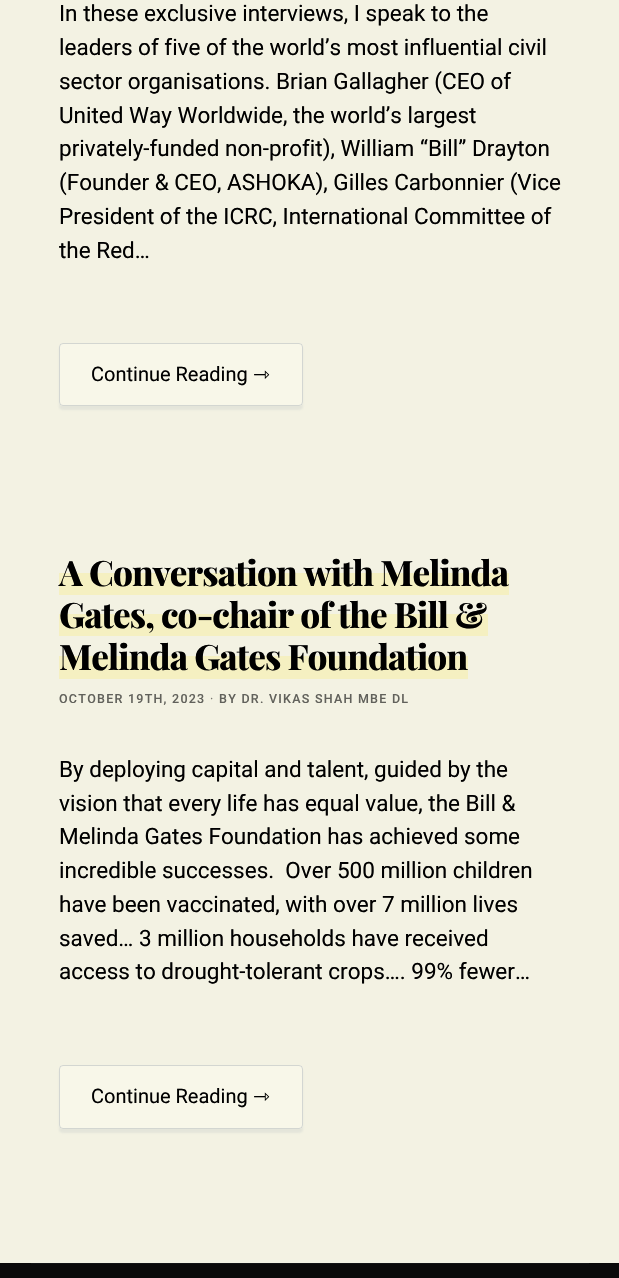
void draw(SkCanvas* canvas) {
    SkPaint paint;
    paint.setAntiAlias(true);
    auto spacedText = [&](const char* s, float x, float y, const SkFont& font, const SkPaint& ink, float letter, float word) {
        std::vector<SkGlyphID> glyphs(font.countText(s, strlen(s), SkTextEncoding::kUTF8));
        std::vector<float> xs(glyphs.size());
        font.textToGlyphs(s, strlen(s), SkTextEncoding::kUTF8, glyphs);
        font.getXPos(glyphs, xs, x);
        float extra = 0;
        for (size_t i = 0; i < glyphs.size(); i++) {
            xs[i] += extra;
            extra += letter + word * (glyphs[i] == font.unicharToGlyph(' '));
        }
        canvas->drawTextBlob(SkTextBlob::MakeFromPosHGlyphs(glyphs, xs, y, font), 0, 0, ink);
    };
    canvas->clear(0xFFF3F2E3);
    SkFont font1(fontMgr->matchFamilyStyle("Roboto", SkFontStyle::Normal()), 22.5f);
    font1.setSubpixel(true);
    paint.setColor(0xFF000000);
    canvas->drawString("In these exclusive interviews, I speak to the", 59, 21, font1, paint);
    canvas->drawString("leaders of five of the world’s most influential civil", 59, 55, font1, paint);
    canvas->drawString("sector organisations. Brian Gallagher (CEO of", 59, 89, font1, paint);
    canvas->drawString("United Way Worldwide, the world’s largest", 59, 123, font1, paint);
    canvas->drawString("privately-funded non-profit), William “Bill” Drayton", 59, 156, font1, paint);
    canvas->drawString("(Founder & CEO, ASHOKA), Gilles Carbonnier (Vice", 59, 190, font1, paint);
    canvas->drawString("President of the ICRC, International Committee of", 59, 224, font1, paint);
    canvas->drawString("the Red…", 59, 258, font1, paint);
    paint.setColor(0x1A64758B);
    paint.setMaskFilter(SkMaskFilter::MakeBlur(kNormal_SkBlurStyle, 1));
    canvas->drawRoundRect(SkRect::MakeXYWH(59, 346, 244, 64), 4, 4, paint);
    paint.setMaskFilter(nullptr);
    paint.setColor(0xFFF8F7E9);
    canvas->drawRoundRect(SkRect::MakeXYWH(59, 343, 244, 63), 4, 4, paint);
    paint.setStyle(SkPaint::kStroke_Style);
    paint.setStrokeWidth(1);
    paint.setColor(0x4064758B);
    canvas->drawRoundRect(SkRect::MakeXYWH(59.5f, 343.5f, 243, 62), 3.5f, 3.5f, paint);
    SkFont font2(fontMgr->matchFamilyStyle("Roboto", SkFontStyle::Normal()), 20);
    font2.setSubpixel(true);
    paint.setStyle(SkPaint::kFill_Style);
    paint.setColor(0xFF000000);
    canvas->drawString("Continue Reading", 91, 381, font2, paint);
    SkFont font3(fontMgr->matchFamilyStyle("DejaVu Sans", SkFontStyle::Normal()), 20);
    font3.setSubpixel(true);
    canvas->drawString("⇾", 253, 381, font3, paint);
    paint.setColor(0xFFF5F0C1);
    canvas->drawRect(SkRect::MakeXYWH(59, 573, 450, 22), paint);
    SkFont font4(fontMgr->matchFamilyStyle("Playfair Display", SkFontStyle(800, SkFontStyle::kNormal_Width, SkFontStyle::kUpright_Slant)), 35);
    font4.setSubpixel(true);
    paint.setColor(0xFF000000);
    spacedText("A Conversation with Melinda", 59, 586, font4, paint, -0.9f, 0);
    paint.setColor(0xFFF5F0C1);
    canvas->drawRect(SkRect::MakeXYWH(59, 614, 429, 22), paint);
    paint.setColor(0xFF000000);
    spacedText("Gates, co-chair of the Bill &", 59, 628, font4, paint, -0.9f, 0);
    paint.setColor(0xFFF5F0C1);
    canvas->drawRect(SkRect::MakeXYWH(59, 656, 409, 23), paint);
    paint.setColor(0xFF000000);
    spacedText("Melinda Gates Foundation", 59, 670, font4, paint, -0.9f, 0);
    SkFont font5(fontMgr->matchFamilyStyle("Roboto", SkFontStyle(500, SkFontStyle::kNormal_Width, SkFontStyle::kUpright_Slant)), 12.5f);
    font5.setSubpixel(true);
    paint.setColor(0xFF61615B);
    spacedText("OCTOBER 19TH, 2023", 59, 703, font5, paint, 1.25f, 0);
    SkFont font6(fontMgr->matchFamilyStyle("Roboto", SkFontStyle::Normal()), 12.5f);
    font6.setSubpixel(true);
    paint.setColor(0xFF7A7972);
    spacedText("·", 210, 703, font6, paint, 1.25f, 0);
    paint.setColor(0xFF61615B);
    spacedText("BY DR. VIKAS SHAH MBE DL", 219, 703, font5, paint, 1.25f, 0);
    paint.setColor(0xFF000000);
    canvas->drawString("By deploying capital and talent, guided by the", 59, 777, font1, paint);
    canvas->drawString("vision that every life has equal value, the Bill &", 59, 811, font1, paint);
    canvas->drawString("Melinda Gates Foundation has achieved some", 59, 844, font1, paint);
    canvas->drawString("incredible successes.  Over 500 million children", 59, 878, font1, paint);
    canvas->drawString("have been vaccinated, with over 7 million lives", 59, 912, font1, paint);
    canvas->drawString("saved… 3 million households have received", 59, 946, font1, paint);
    canvas->drawString("access to drought-tolerant crops…. 99% fewer…", 59, 979, font1, paint);
    paint.setColor(0x1A64758B);
    paint.setMaskFilter(SkMaskFilter::MakeBlur(kNormal_SkBlurStyle, 1));
    canvas->drawRoundRect(SkRect::MakeXYWH(59, 1069, 244, 64), 4, 4, paint);
    paint.setMaskFilter(nullptr);
    paint.setColor(0xFFF8F7E9);
    canvas->drawRoundRect(SkRect::MakeXYWH(59, 1065, 244, 64), 4, 4, paint);
    paint.setStyle(SkPaint::kStroke_Style);
    paint.setColor(0x4064758B);
    canvas->drawRoundRect(SkRect::MakeXYWH(59.5f, 1065.5f, 243, 63), 3.5f, 3.5f, paint);
    paint.setStyle(SkPaint::kFill_Style);
    paint.setColor(0xFF000000);
    canvas->drawString("Continue Reading", 91, 1103, font2, paint);
    canvas->drawString("⇾", 253, 1103, font3, paint);
    paint.setColor(0xFF0A0A0A);
    canvas->drawRect(SkRect::MakeXYWH(0, 1263, 619, 15), paint);
    paint.setColor(0xFF131517);
    canvas->drawRect(SkRect::MakeXYWH(31, 1263, 558, 1), paint);
}
